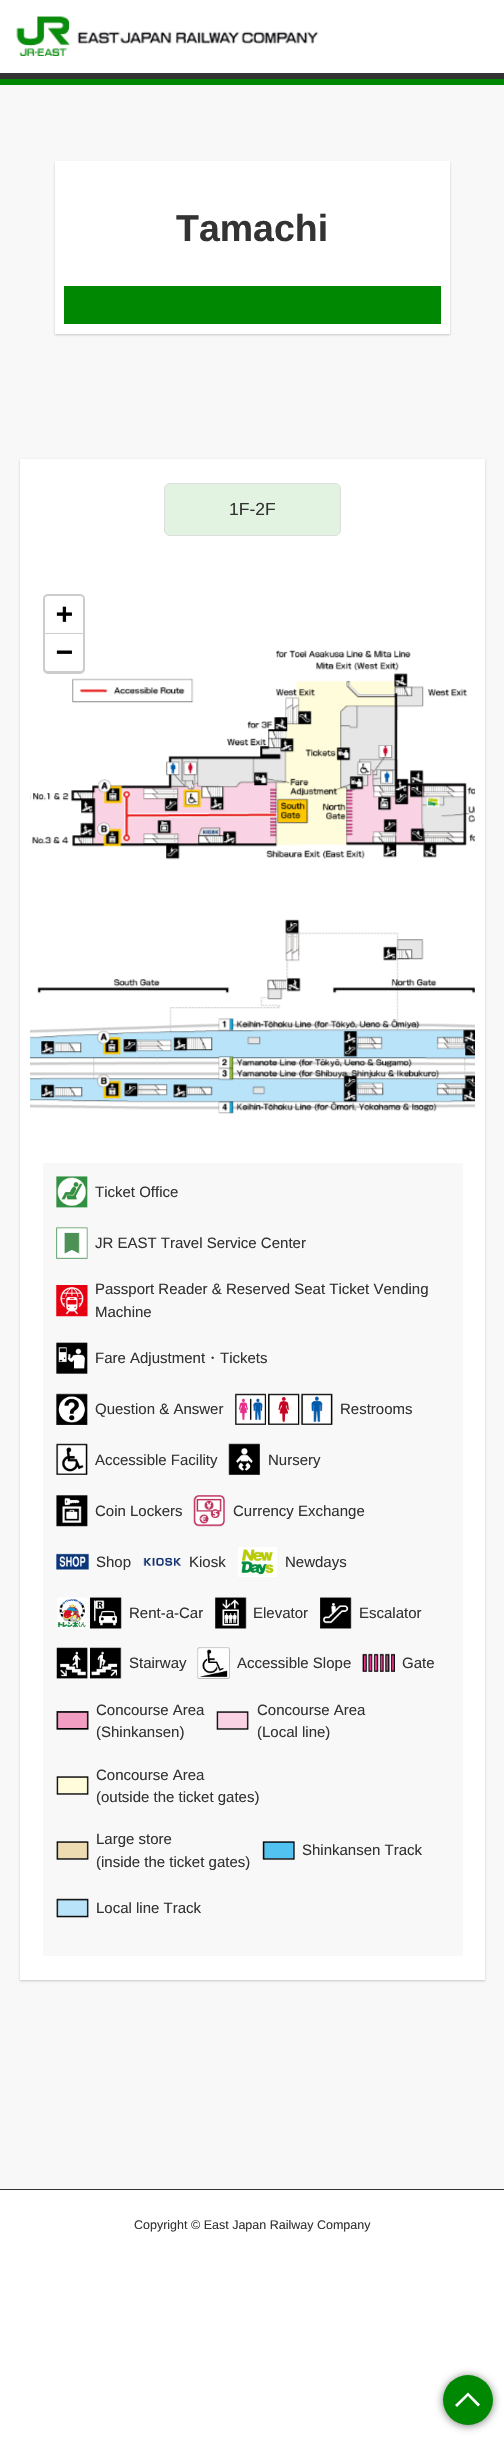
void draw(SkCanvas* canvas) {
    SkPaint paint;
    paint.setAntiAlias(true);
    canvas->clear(0xFFFFFFFF);
    paint.setColor(0xFF333333);
    canvas->drawRect(SkRect::MakeXYWH(0, 73, 504, 6), paint);
    canvas->drawImageRect(SkImages::DeferredFromEncodedData(SkData::MakeFromFileName("img1.png")), SkRect::MakeXYWH(16, 16, 303, 40), SkSamplingOptions());
    paint.setColor(0xFF008803);
    canvas->drawRect(SkRect::MakeXYWH(0, 79, 504, 6), paint);
    paint.setColor(0xFFF8F8F8);
    canvas->drawRect(SkRect::MakeXYWH(0, 85, 504, 2104), paint);
    paint.setColor(0x33000000);
    paint.setMaskFilter(SkMaskFilter::MakeBlur(kNormal_SkBlurStyle, 1));
    canvas->drawRect(SkRect::MakeXYWH(55, 163, 395, 172), paint);
    paint.setMaskFilter(nullptr);
    paint.setColor(0xFFFFFFFF);
    canvas->drawRect(SkRect::MakeXYWH(55, 161, 395, 173), paint);
    SkFont font1(fontMgr->matchFamilyStyle("Liberation Sans", SkFontStyle::Bold()), 37.5f);
    font1.setSubpixel(true);
    paint.setColor(0xFF333333);
    canvas->drawString("Tamachi", 176, 241, font1, paint);
    paint.setColor(0xFF008803);
    canvas->drawRect(SkRect::MakeXYWH(64, 286, 377, 38), paint);
    paint.setColor(0x33000000);
    paint.setMaskFilter(SkMaskFilter::MakeBlur(kNormal_SkBlurStyle, 1));
    canvas->drawRect(SkRect::MakeXYWH(20, 460, 465, 1521), paint);
    paint.setMaskFilter(nullptr);
    paint.setColor(0xFFFFFFFF);
    canvas->drawRect(SkRect::MakeXYWH(20, 459, 465, 1521), paint);
    paint.setColor(0xFFE2F3E2);
    canvas->drawRoundRect(SkRect::MakeXYWH(164.5f, 483.5f, 176, 52), 5.5f, 5.5f, paint);
    paint.setStyle(SkPaint::kStroke_Style);
    paint.setStrokeWidth(1);
    paint.setColor(0xFFDDDDDD);
    canvas->drawRoundRect(SkRect::MakeXYWH(164.5f, 483.5f, 176, 52), 5.5f, 5.5f, paint);
    SkFont font2(fontMgr->matchFamilyStyle("Liberation Sans", SkFontStyle::Normal()), 17.5f);
    font2.setSubpixel(true);
    paint.setStyle(SkPaint::kFill_Style);
    paint.setColor(0xFF333333);
    canvas->drawString("1F-2F", 229, 515, font2, paint);
    canvas->drawImageRect(SkImages::DeferredFromEncodedData(SkData::MakeFromFileName("img2.png")), SkRect::MakeXYWH(30, 650, 445, 464), SkSamplingOptions());
    paint.setStyle(SkPaint::kStroke_Style);
    paint.setStrokeWidth(3);
    paint.setColor(0xFFCCCCCC);
    canvas->drawRoundRect(SkRect::MakeXYWH(44.5f, 595.5f, 39, 77), 3.5f, 3.5f, paint);
    paint.setStyle(SkPaint::kFill_Style);
    paint.setColor(0xFFFFFFFF);
    canvas->drawPath(SkPathBuilder().moveTo(47.5f, 596).lineTo(80.5f, 596).cubicTo(82, 596, 83, 597, 83, 598.5f).lineTo(83, 634).lineTo(45, 634).lineTo(45, 598.5f).cubicTo(45, 597, 46, 596, 47.5f, 596).close().detach(), paint);
    paint.setColor(0xFFCCCCCC);
    canvas->drawRect(SkRect::MakeXYWH(45, 633, 38, 1), paint);
    SkFont font3(fontMgr->matchFamilyStyle("DejaVu Sans Mono", SkFontStyle::Bold()), 28);
    font3.setSubpixel(true);
    paint.setColor(0xFF000000);
    canvas->drawString("+", 56, 623, font3, paint);
    paint.setColor(0xFFFFFFFF);
    canvas->drawPath(SkPathBuilder().moveTo(45, 634).lineTo(83, 634).lineTo(83, 668.5f).cubicTo(83, 670, 82, 671, 80.5f, 671).lineTo(47.5f, 671).cubicTo(46, 671, 45, 670, 45, 668.5f).close().detach(), paint);
    paint.setColor(0xFF000000);
    canvas->drawString("−", 56, 661, font3, paint);
    paint.setColor(0xFFF8F8F8);
    canvas->drawRect(SkRect::MakeXYWH(43, 1163, 420, 793), paint);
    canvas->drawImageRect(SkImages::DeferredFromEncodedData(SkData::MakeFromFileName("img3.png")), SkRect::MakeXYWH(56, 1176, 32, 32), SkSamplingOptions());
    SkFont font4(fontMgr->matchFamilyStyle("Liberation Sans", SkFontStyle::Normal()), 15);
    font4.setSubpixel(true);
    paint.setColor(0xFF333333);
    canvas->drawString("Ticket Office", 95, 1197, font4, paint);
    canvas->drawImageRect(SkImages::DeferredFromEncodedData(SkData::MakeFromFileName("img4.png")), SkRect::MakeXYWH(56, 1227, 32, 32), SkSamplingOptions());
    canvas->drawString("JR EAST Travel Service Center", 95, 1248, font4, paint);
    canvas->drawImageRect(SkImages::DeferredFromEncodedData(SkData::MakeFromFileName("img5.png")), SkRect::MakeXYWH(56, 1285, 32, 32), SkSamplingOptions());
    canvas->drawString("Passport Reader & Reserved Seat Ticket Vending", 95, 1294, font4, paint);
    canvas->drawString("Machine", 95, 1317, font4, paint);
    canvas->drawImageRect(SkImages::DeferredFromEncodedData(SkData::MakeFromFileName("img6.png")), SkRect::MakeXYWH(56, 1342, 32, 32), SkSamplingOptions());
    canvas->drawString("Fare Adjustment", 95, 1363, font4, paint);
    SkFont font5(fontMgr->matchFamilyStyle("WenQuanYi Zen Hei", SkFontStyle(500, SkFontStyle::kNormal_Width, SkFontStyle::kUpright_Slant)), 15);
    font5.setSubpixel(true);
    canvas->drawString("・", 205, 1363, font5, paint);
    canvas->drawString("Tickets", 220, 1363, font4, paint);
    canvas->drawImageRect(SkImages::DeferredFromEncodedData(SkData::MakeFromFileName("img7.png")), SkRect::MakeXYWH(56, 1393, 32, 32), SkSamplingOptions());
    canvas->drawString("Question & Answer", 95, 1414, font4, paint);
    canvas->drawImageRect(SkImages::DeferredFromEncodedData(SkData::MakeFromFileName("img8.png")), SkRect::MakeXYWH(235, 1393, 98, 32), SkSamplingOptions());
    canvas->drawString("Restrooms", 340, 1414, font4, paint);
    canvas->drawImageRect(SkImages::DeferredFromEncodedData(SkData::MakeFromFileName("img9.png")), SkRect::MakeXYWH(56, 1443, 32, 32), SkSamplingOptions());
    canvas->drawString("Accessible Facility", 95, 1465, font4, paint);
    canvas->drawImageRect(SkImages::DeferredFromEncodedData(SkData::MakeFromFileName("img10.png")), SkRect::MakeXYWH(228, 1443, 32, 32), SkSamplingOptions());
    canvas->drawString("Nursery", 268, 1465, font4, paint);
    canvas->drawImageRect(SkImages::DeferredFromEncodedData(SkData::MakeFromFileName("img11.png")), SkRect::MakeXYWH(56, 1495, 32, 32), SkSamplingOptions());
    canvas->drawString("Coin Lockers", 95, 1516, font4, paint);
    canvas->drawImageRect(SkImages::DeferredFromEncodedData(SkData::MakeFromFileName("img12.png")), SkRect::MakeXYWH(193, 1495, 32, 32), SkSamplingOptions());
    canvas->drawString("Currency Exchange", 233, 1516, font4, paint);
    canvas->drawImageRect(SkImages::DeferredFromEncodedData(SkData::MakeFromFileName("img13.png")), SkRect::MakeXYWH(56, 1553, 33, 17), SkSamplingOptions());
    canvas->drawString("Shop", 96, 1567, font4, paint);
    canvas->drawImageRect(SkImages::DeferredFromEncodedData(SkData::MakeFromFileName("img14.png")), SkRect::MakeXYWH(143, 1557, 39, 9), SkSamplingOptions());
    canvas->drawString("Kiosk", 189, 1567, font4, paint);
    canvas->drawImageRect(SkImages::DeferredFromEncodedData(SkData::MakeFromFileName("img15.png")), SkRect::MakeXYWH(238, 1547, 39, 30), SkSamplingOptions());
    canvas->drawString("Newdays", 285, 1567, font4, paint);
    canvas->drawImageRect(SkImages::DeferredFromEncodedData(SkData::MakeFromFileName("img16.png")), SkRect::MakeXYWH(57, 1597, 65, 32), SkSamplingOptions());
    canvas->drawString("Rent-a-Car", 129, 1618, font4, paint);
    canvas->drawImageRect(SkImages::DeferredFromEncodedData(SkData::MakeFromFileName("img17.png")), SkRect::MakeXYWH(215, 1597, 32, 32), SkSamplingOptions());
    canvas->drawString("Elevator", 253, 1618, font4, paint);
    canvas->drawImageRect(SkImages::DeferredFromEncodedData(SkData::MakeFromFileName("img18.png")), SkRect::MakeXYWH(320, 1597, 32, 32), SkSamplingOptions());
    canvas->drawString("Escalator", 359, 1618, font4, paint);
    canvas->drawImageRect(SkImages::DeferredFromEncodedData(SkData::MakeFromFileName("img19.png")), SkRect::MakeXYWH(56, 1647, 66, 32), SkSamplingOptions());
    canvas->drawString("Stairway", 129, 1668, font4, paint);
    canvas->drawImageRect(SkImages::DeferredFromEncodedData(SkData::MakeFromFileName("img20.png")), SkRect::MakeXYWH(197, 1647, 33, 32), SkSamplingOptions());
    canvas->drawString("Accessible Slope", 237, 1668, font4, paint);
    canvas->drawImageRect(SkImages::DeferredFromEncodedData(SkData::MakeFromFileName("img21.png")), SkRect::MakeXYWH(362, 1653, 33, 19), SkSamplingOptions());
    canvas->drawString("Gate", 402, 1668, font4, paint);
    canvas->drawImageRect(SkImages::DeferredFromEncodedData(SkData::MakeFromFileName("img22.png")), SkRect::MakeXYWH(56, 1711, 33, 19), SkSamplingOptions());
    canvas->drawString("Concourse Area", 96, 1715, font4, paint);
    canvas->drawString("(Shinkansen)", 96, 1737, font4, paint);
    canvas->drawImageRect(SkImages::DeferredFromEncodedData(SkData::MakeFromFileName("img23.png")), SkRect::MakeXYWH(216, 1711, 33, 19), SkSamplingOptions());
    canvas->drawString("Concourse Area", 257, 1715, font4, paint);
    canvas->drawString("(Local line)", 257, 1737, font4, paint);
    canvas->drawImageRect(SkImages::DeferredFromEncodedData(SkData::MakeFromFileName("img24.png")), SkRect::MakeXYWH(56, 1776, 33, 19), SkSamplingOptions());
    canvas->drawString("Concourse Area", 96, 1780, font4, paint);
    canvas->drawString("(outside the ticket gates)", 96, 1802, font4, paint);
    canvas->drawImageRect(SkImages::DeferredFromEncodedData(SkData::MakeFromFileName("img25.png")), SkRect::MakeXYWH(56, 1841, 33, 19), SkSamplingOptions());
    canvas->drawString("Large store", 96, 1844, font4, paint);
    canvas->drawString("(inside the ticket gates)", 96, 1867, font4, paint);
    canvas->drawImageRect(SkImages::DeferredFromEncodedData(SkData::MakeFromFileName("img26.png")), SkRect::MakeXYWH(262, 1841, 33, 19), SkSamplingOptions());
    canvas->drawString("Shinkansen Track", 302, 1855, font4, paint);
    canvas->drawImageRect(SkImages::DeferredFromEncodedData(SkData::MakeFromFileName("img27.png")), SkRect::MakeXYWH(56, 1898, 33, 20), SkSamplingOptions());
    canvas->drawString("Local line Track", 96, 1913, font4, paint);
    canvas->drawRect(SkRect::MakeXYWH(0, 2189, 504, 1), paint);
    SkFont font6(fontMgr->matchFamilyStyle("Liberation Sans", SkFontStyle::Normal()), 12.5f);
    font6.setSubpixel(true);
    canvas->drawString("Copyright © East Japan Railway Company", 134, 2229, font6, paint);
    paint.setColor(0x80000000);
    paint.setMaskFilter(SkMaskFilter::MakeBlur(kNormal_SkBlurStyle, 4));
    canvas->drawRoundRect(SkRect::MakeXYWH(443, 2376, 50, 50), 25, 25, paint);
    paint.setMaskFilter(nullptr);
    paint.setColor(0xFF008803);
    canvas->drawCircle(468, 2400, 25, paint);
    paint.setColor(0xFFFFFFFF);
    canvas->drawPath(SkPathBuilder(SkPathFillType::kEvenOdd).moveTo(468, 2392.5f).lineTo(480, 2404.5f).lineTo(478, 2406.5f).lineTo(468, 2396).lineTo(457, 2407).lineTo(455, 2405).lineTo(466, 2394.5f).close().detach(), paint);
}
